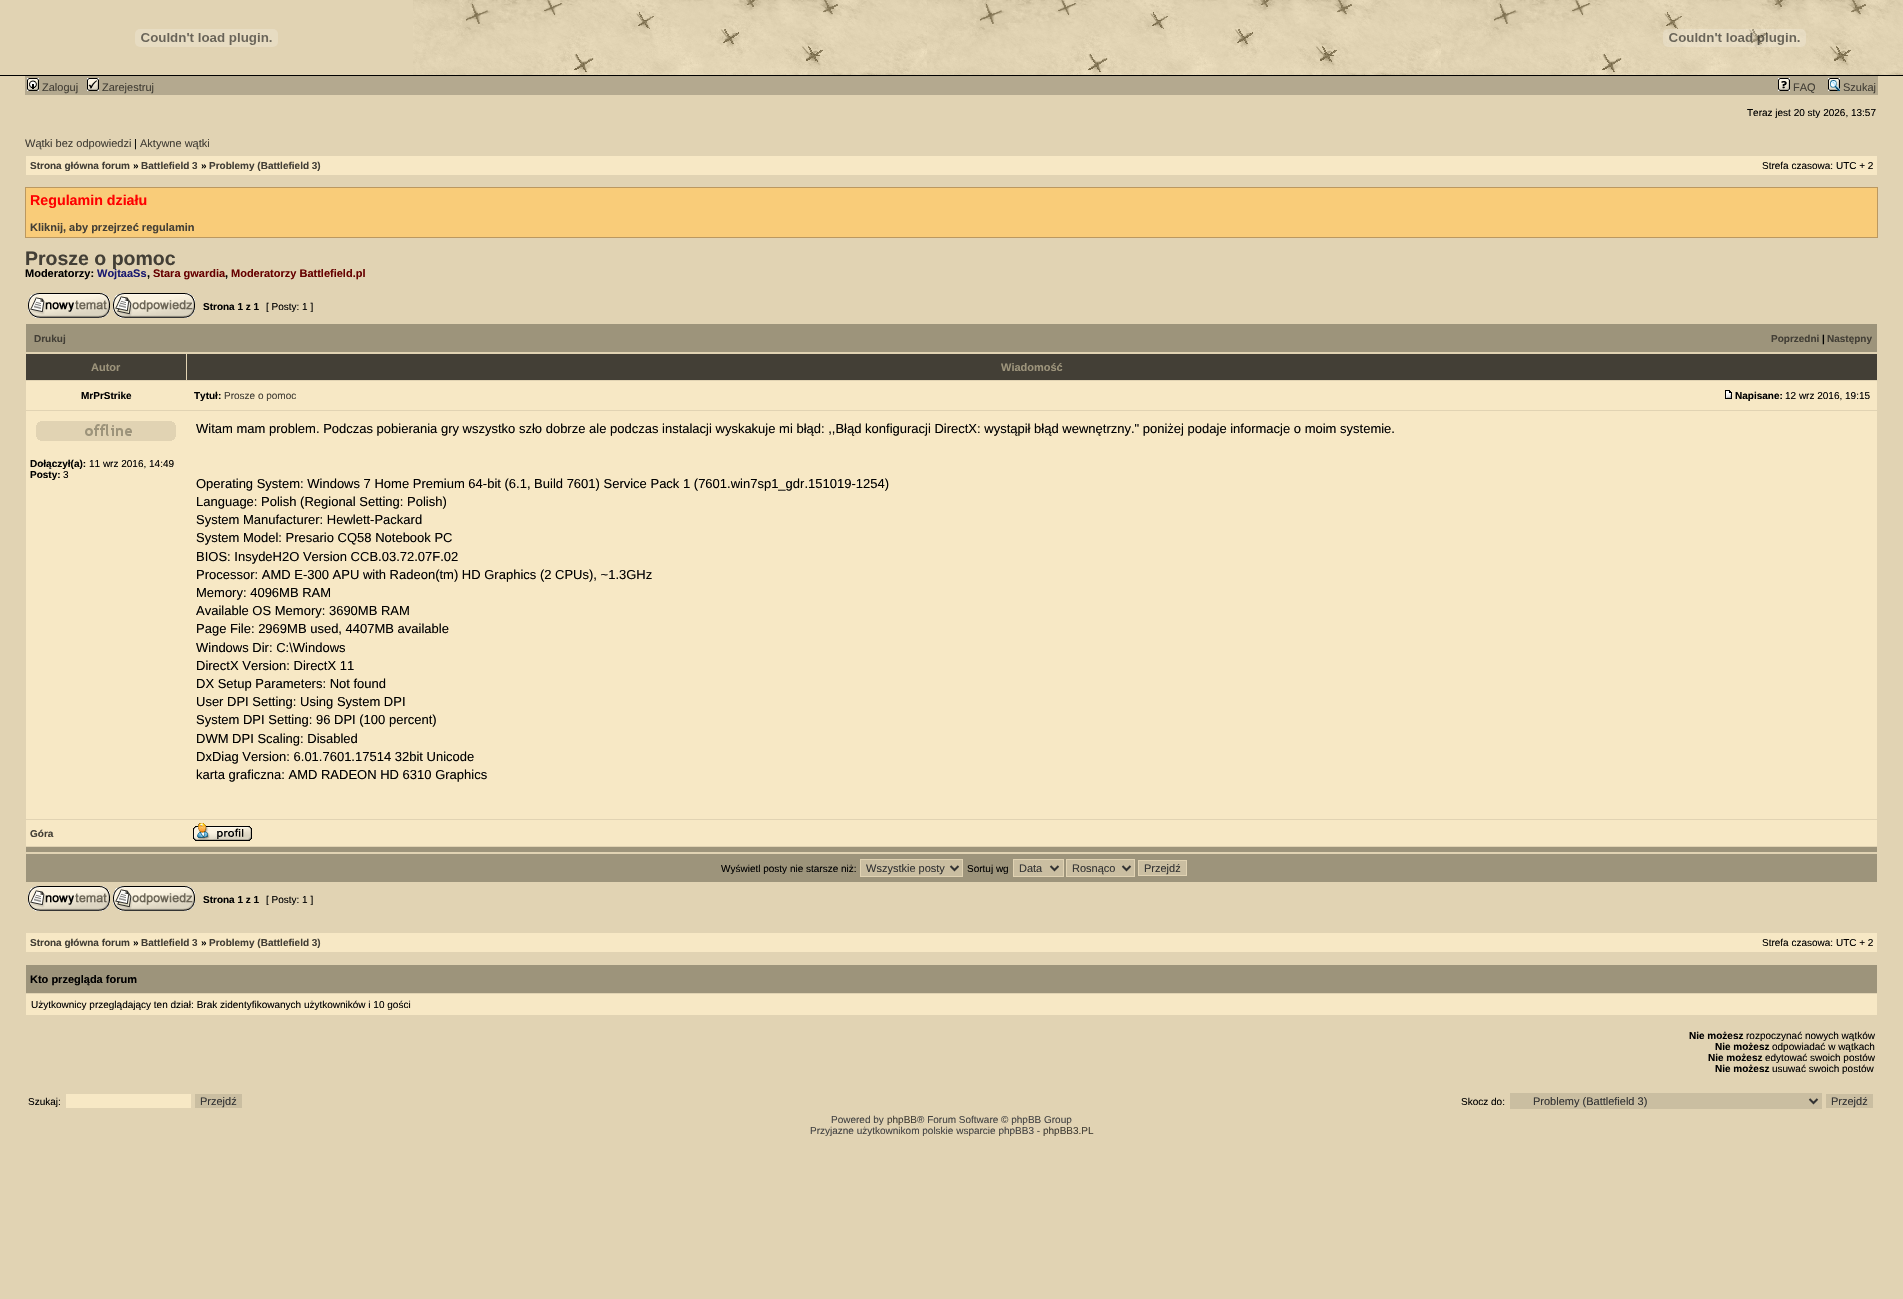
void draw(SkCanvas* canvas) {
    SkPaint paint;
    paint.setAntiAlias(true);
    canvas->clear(0xFFE1D3B3);
    canvas->drawImageRect(SkImages::DeferredFromEncodedData(SkData::MakeFromFileName("img1.png")), SkRect::MakeXYWH(413, 0, 1490, 75), SkSamplingOptions());
    canvas->drawImageRect(SkImages::DeferredFromEncodedData(SkData::MakeFromFileName("img2.png")), SkRect::MakeXYWH(1663, 29, 143, 18), SkSamplingOptions());
    paint.setColor(0xFF000000);
    canvas->drawRect(SkRect::MakeXYWH(0, 75, 1903, 1), paint);
    canvas->drawImageRect(SkImages::DeferredFromEncodedData(SkData::MakeFromFileName("img3.png")), SkRect::MakeXYWH(135, 29, 143, 18), SkSamplingOptions());
    paint.setColor(0xFFB4A98F);
    canvas->drawRect(SkRect::MakeXYWH(25, 76, 1853, 19), paint);
    canvas->drawImageRect(SkImages::DeferredFromEncodedData(SkData::MakeFromFileName("img4.png")), SkRect::MakeXYWH(27, 78, 12, 13), SkSamplingOptions());
    SkFont font1(fontMgr->matchFamilyStyle("Liberation Sans", SkFontStyle::Normal()), 11);
    font1.setSubpixel(true);
    paint.setColor(0xFF433F36);
    canvas->drawString("Zaloguj", 42, 91, font1, paint);
    canvas->drawImageRect(SkImages::DeferredFromEncodedData(SkData::MakeFromFileName("img5.png")), SkRect::MakeXYWH(87, 78, 12, 13), SkSamplingOptions());
    canvas->drawString("Zarejestruj", 102, 91, font1, paint);
    canvas->drawImageRect(SkImages::DeferredFromEncodedData(SkData::MakeFromFileName("img6.png")), SkRect::MakeXYWH(1778, 78, 12, 13), SkSamplingOptions());
    canvas->drawString("FAQ", 1793, 91, font1, paint);
    canvas->drawImageRect(SkImages::DeferredFromEncodedData(SkData::MakeFromFileName("img7.png")), SkRect::MakeXYWH(1828, 78, 12, 13), SkSamplingOptions());
    canvas->drawString("Szukaj", 1843, 91, font1, paint);
    SkFont font2(fontMgr->matchFamilyStyle("Liberation Sans", SkFontStyle::Normal()), 10);
    font2.setSubpixel(true);
    paint.setColor(0xFF000000);
    canvas->drawString("Teraz jest 20 sty 2026, 13:57", 1747, 116, font2, paint);
    paint.setColor(0xFF433F36);
    canvas->drawString("Wątki bez odpowiedzi", 25, 147, font1, paint);
    paint.setColor(0xFF000000);
    canvas->drawString("|", 134, 147, font1, paint);
    paint.setColor(0xFF433F36);
    canvas->drawString("Aktywne wątki", 140, 147, font1, paint);
    paint.setColor(0xFFF7E8C5);
    canvas->drawRect(SkRect::MakeXYWH(26, 156, 1851, 19), paint);
    SkFont font3(fontMgr->matchFamilyStyle("Liberation Sans", SkFontStyle::Bold()), 10);
    font3.setSubpixel(true);
    paint.setColor(0xFF433F36);
    canvas->drawString("Strona główna forum", 30, 169, font3, paint);
    paint.setColor(0xFF000000);
    canvas->drawString("»", 133, 169, font3, paint);
    paint.setColor(0xFF433F36);
    canvas->drawString("Battlefield 3", 141, 169, font3, paint);
    paint.setColor(0xFF000000);
    canvas->drawString("»", 201, 169, font3, paint);
    paint.setColor(0xFF433F36);
    canvas->drawString("Problemy (Battlefield 3)", 209, 169, font3, paint);
    paint.setColor(0xFF000000);
    canvas->drawString("Strefa czasowa: UTC + 2", 1762, 169, font2, paint);
    paint.setColor(0xFFF9CC79);
    canvas->drawRect(SkRect::MakeXYWH(25.5f, 187.5f, 1852, 50), paint);
    paint.setStyle(SkPaint::kStroke_Style);
    paint.setStrokeWidth(1);
    paint.setColor(0xFFBB9860);
    canvas->drawRect(SkRect::MakeXYWH(25.5f, 187.5f, 1852, 50), paint);
    SkFont font4(fontMgr->matchFamilyStyle("Liberation Sans", SkFontStyle::Bold()), 14.25f);
    font4.setSubpixel(true);
    paint.setStyle(SkPaint::kFill_Style);
    paint.setColor(0xFFFF0000);
    canvas->drawString("Regulamin działu", 30, 205, font4, paint);
    SkFont font5(fontMgr->matchFamilyStyle("Liberation Sans", SkFontStyle::Bold()), 11);
    font5.setSubpixel(true);
    paint.setColor(0xFF433F36);
    canvas->drawString("Kliknij, aby przejrzeć regulamin", 30, 231, font5, paint);
    SkFont font6(fontMgr->matchFamilyStyle("Liberation Sans", SkFontStyle::Bold()), 19.5f);
    font6.setSubpixel(true);
    canvas->drawString("Prosze o pomoc", 25, 265, font6, paint);
    paint.setColor(0xFF000000);
    canvas->drawString("Moderatorzy:", 25, 277, font5, paint);
    paint.setColor(0xFF191970);
    canvas->drawString("WojtaaSs", 97, 277, font5, paint);
    paint.setColor(0xFF000000);
    canvas->drawString(",", 147, 277, font5, paint);
    paint.setColor(0xFF660000);
    canvas->drawString("Stara gwardia", 153, 277, font5, paint);
    paint.setColor(0xFF000000);
    canvas->drawString(",", 225, 277, font5, paint);
    paint.setColor(0xFF660000);
    canvas->drawString("Moderatorzy Battlefield.pl", 231, 277, font5, paint);
    canvas->drawImageRect(SkImages::DeferredFromEncodedData(SkData::MakeFromFileName("img8.png")), SkRect::MakeXYWH(28, 293, 82, 25), SkSamplingOptions());
    canvas->drawImageRect(SkImages::DeferredFromEncodedData(SkData::MakeFromFileName("img9.png")), SkRect::MakeXYWH(113, 293, 82, 25), SkSamplingOptions());
    paint.setColor(0xFF000000);
    canvas->drawString("Strona 1 z 1", 203, 310, font3, paint);
    canvas->drawString("[ Posty: 1 ]", 266, 310, font2, paint);
    paint.setColor(0xFF9D947B);
    canvas->drawRect(SkRect::MakeXYWH(26, 324, 1851, 28), paint);
    paint.setColor(0xFF433F36);
    canvas->drawString("Drukuj", 34, 342, font3, paint);
    canvas->drawString("Poprzedni", 1771, 342, font3, paint);
    paint.setColor(0xFF000000);
    canvas->drawString("|", 1822, 342, font3, paint);
    paint.setColor(0xFF433F36);
    canvas->drawString("Następny", 1827, 342, font3, paint);
    canvas->drawRect(SkRect::MakeXYWH(26, 354, 160, 26), paint);
    paint.setColor(0xFF9D947B);
    canvas->drawString("Autor", 91, 371, font5, paint);
    paint.setColor(0xFF433F36);
    canvas->drawRect(SkRect::MakeXYWH(187, 354, 1690, 26), paint);
    paint.setColor(0xFF9D947B);
    canvas->drawString("Wiadomość", 1001, 371, font5, paint);
    paint.setColor(0xFFF7E8C5);
    canvas->drawRect(SkRect::MakeXYWH(26, 381, 1851, 29), paint);
    paint.setColor(0xFF000000);
    canvas->drawString("MrPrStrike", 81, 399, font3, paint);
    canvas->drawString("Tytuł:", 194, 399, font3, paint);
    paint.setColor(0xFF433F36);
    canvas->drawString("Prosze o pomoc", 224, 399, font2, paint);
    canvas->drawImageRect(SkImages::DeferredFromEncodedData(SkData::MakeFromFileName("img10.png")), SkRect::MakeXYWH(1725, 390, 7, 9), SkSamplingOptions());
    paint.setColor(0xFF000000);
    canvas->drawString("Napisane:", 1735, 399, font3, paint);
    canvas->drawString("12 wrz 2016, 19:15", 1785, 399, font2, paint);
    paint.setColor(0xFFF7E8C5);
    canvas->drawRect(SkRect::MakeXYWH(26, 411, 1851, 408), paint);
    canvas->drawImageRect(SkImages::DeferredFromEncodedData(SkData::MakeFromFileName("img11.png")), SkRect::MakeXYWH(36, 421, 140, 20), SkSamplingOptions());
    paint.setColor(0xFF000000);
    canvas->drawString("Dołączył(a):", 30, 467, font3, paint);
    canvas->drawString("11 wrz 2016, 14:49", 89, 467, font2, paint);
    canvas->drawString("Posty:", 30, 478, font3, paint);
    canvas->drawString("3", 63, 478, font2, paint);
    SkFont font7(fontMgr->matchFamilyStyle("Liberation Sans", SkFontStyle::Normal()), 13);
    font7.setSubpixel(true);
    canvas->drawString("Witam mam problem. Podczas pobierania gry wszystko szło dobrze ale podczas instalacji wyskakuje mi błąd: ,,Błąd konfiguracji DirectX: wystąpił błąd wewnętrzny.\" poniżej podaje informacje o moim systemie.", 196, 433, font7, paint);
    canvas->drawString("Operating System: Windows 7 Home Premium 64-bit (6.1, Build 7601) Service Pack 1 (7601.win7sp1_gdr.151019-1254)", 196, 488, font7, paint);
    canvas->drawString("Language: Polish (Regional Setting: Polish)", 196, 506, font7, paint);
    canvas->drawString("System Manufacturer: Hewlett-Packard", 196, 524, font7, paint);
    canvas->drawString("System Model: Presario CQ58 Notebook PC", 196, 542, font7, paint);
    canvas->drawString("BIOS: InsydeH2O Version CCB.03.72.07F.02", 196, 561, font7, paint);
    canvas->drawString("Processor: AMD E-300 APU with Radeon(tm) HD Graphics (2 CPUs), ~1.3GHz", 196, 579, font7, paint);
    canvas->drawString("Memory: 4096MB RAM", 196, 597, font7, paint);
    canvas->drawString("Available OS Memory: 3690MB RAM", 196, 615, font7, paint);
    canvas->drawString("Page File: 2969MB used, 4407MB available", 196, 633, font7, paint);
    canvas->drawString("Windows Dir: C:\\Windows", 196, 652, font7, paint);
    canvas->drawString("DirectX Version: DirectX 11", 196, 670, font7, paint);
    canvas->drawString("DX Setup Parameters: Not found", 196, 688, font7, paint);
    canvas->drawString("User DPI Setting: Using System DPI", 196, 706, font7, paint);
    canvas->drawString("System DPI Setting: 96 DPI (100 percent)", 196, 724, font7, paint);
    canvas->drawString("DWM DPI Scaling: Disabled", 196, 743, font7, paint);
    canvas->drawString("DxDiag Version: 6.01.7601.17514 32bit Unicode", 196, 761, font7, paint);
    canvas->drawString("karta graficzna: AMD RADEON HD 6310 Graphics", 196, 779, font7, paint);
    paint.setColor(0xFFF7E8C5);
    canvas->drawRect(SkRect::MakeXYWH(26, 820, 1851, 26), paint);
    paint.setColor(0xFF433F36);
    canvas->drawString("Góra", 30, 837, font3, paint);
    canvas->drawImageRect(SkImages::DeferredFromEncodedData(SkData::MakeFromFileName("img12.png")), SkRect::MakeXYWH(193, 823, 59, 18), SkSamplingOptions());
    paint.setColor(0xFF9D947B);
    canvas->drawRect(SkRect::MakeXYWH(26, 847, 1851, 5), paint);
    canvas->drawRect(SkRect::MakeXYWH(26, 854, 1851, 28), paint);
    paint.setColor(0xFF000000);
    canvas->drawString("Wyświetl posty nie starsze niż:", 721, 872, font2, paint);
    paint.setColor(0xFFCABEA1);
    canvas->drawRect(SkRect::MakeXYWH(860.5f, 859.5f, 102, 17), paint);
    paint.setStyle(SkPaint::kStroke_Style);
    paint.setColor(0xFFE1D3B3);
    canvas->drawRect(SkRect::MakeXYWH(860.5f, 859.5f, 102, 17), paint);
    paint.setStrokeWidth(2);
    paint.setColor(0xFF333333);
    canvas->drawPath(SkPathBuilder().moveTo(950.5f, 866).lineTo(954.5f, 870).lineTo(958.5f, 866).detach(), paint);
    paint.setStyle(SkPaint::kFill_Style);
    canvas->drawString("Wszystkie posty", 866, 872, font1, paint);
    paint.setColor(0xFF000000);
    canvas->drawString("Sortuj wg", 967, 872, font2, paint);
    paint.setColor(0xFFCABEA1);
    canvas->drawRect(SkRect::MakeXYWH(1013.5f, 859.5f, 50, 17), paint);
    paint.setStyle(SkPaint::kStroke_Style);
    paint.setStrokeWidth(1);
    paint.setColor(0xFFE1D3B3);
    canvas->drawRect(SkRect::MakeXYWH(1013.5f, 859.5f, 50, 17), paint);
    paint.setStrokeWidth(2);
    paint.setColor(0xFF333333);
    canvas->drawPath(SkPathBuilder().moveTo(1050.5f, 866).lineTo(1054.5f, 870).lineTo(1058.5f, 866).detach(), paint);
    paint.setStyle(SkPaint::kFill_Style);
    canvas->drawString("Data", 1019, 872, font1, paint);
    paint.setColor(0xFFCABEA1);
    canvas->drawRect(SkRect::MakeXYWH(1066.5f, 859.5f, 68, 17), paint);
    paint.setStyle(SkPaint::kStroke_Style);
    paint.setStrokeWidth(1);
    paint.setColor(0xFFE1D3B3);
    canvas->drawRect(SkRect::MakeXYWH(1066.5f, 859.5f, 68, 17), paint);
    paint.setStrokeWidth(2);
    paint.setColor(0xFF333333);
    canvas->drawPath(SkPathBuilder().moveTo(1122.5f, 866).lineTo(1126.5f, 870).lineTo(1130.5f, 866).detach(), paint);
    paint.setStyle(SkPaint::kFill_Style);
    canvas->drawString("Rosnąco", 1072, 872, font1, paint);
    paint.setColor(0xFFCABEA1);
    canvas->drawRect(SkRect::MakeXYWH(1138.5f, 860.5f, 48, 15), paint);
    paint.setStyle(SkPaint::kStroke_Style);
    paint.setStrokeWidth(1);
    paint.setColor(0xFFE1D3B3);
    canvas->drawRect(SkRect::MakeXYWH(1138.5f, 860.5f, 48, 15), paint);
    paint.setStyle(SkPaint::kFill_Style);
    paint.setColor(0xFF333333);
    canvas->drawString("Przejdź", 1144, 872, font1, paint);
    canvas->drawImageRect(SkImages::DeferredFromEncodedData(SkData::MakeFromFileName("img8.png")), SkRect::MakeXYWH(28, 886, 82, 25), SkSamplingOptions());
    canvas->drawImageRect(SkImages::DeferredFromEncodedData(SkData::MakeFromFileName("img9.png")), SkRect::MakeXYWH(113, 886, 82, 25), SkSamplingOptions());
    paint.setColor(0xFF000000);
    canvas->drawString("Strona 1 z 1", 203, 903, font3, paint);
    canvas->drawString("[ Posty: 1 ]", 266, 903, font2, paint);
    paint.setColor(0xFFF7E8C5);
    canvas->drawRect(SkRect::MakeXYWH(26, 933, 1851, 19), paint);
    paint.setColor(0xFF433F36);
    canvas->drawString("Strona główna forum", 30, 946, font3, paint);
    paint.setColor(0xFF000000);
    canvas->drawString("»", 133, 946, font3, paint);
    paint.setColor(0xFF433F36);
    canvas->drawString("Battlefield 3", 141, 946, font3, paint);
    paint.setColor(0xFF000000);
    canvas->drawString("»", 201, 946, font3, paint);
    paint.setColor(0xFF433F36);
    canvas->drawString("Problemy (Battlefield 3)", 209, 946, font3, paint);
    paint.setColor(0xFF000000);
    canvas->drawString("Strefa czasowa: UTC + 2", 1762, 946, font2, paint);
    paint.setColor(0xFF9D947B);
    canvas->drawRect(SkRect::MakeXYWH(26, 965, 1851, 28), paint);
    paint.setColor(0xFF000000);
    canvas->drawString("Kto przegląda forum", 30, 983, font5, paint);
    paint.setColor(0xFFF7E8C5);
    canvas->drawRect(SkRect::MakeXYWH(26, 994, 1851, 21), paint);
    paint.setColor(0xFF000000);
    canvas->drawString("Użytkownicy przeglądający ten dział: Brak zidentyfikowanych użytkowników i 10 gości", 31, 1008, font2, paint);
    canvas->drawString("Nie możesz", 1689, 1039, font3, paint);
    canvas->drawString("rozpoczynać nowych wątków", 1746, 1039, font2, paint);
    canvas->drawString("Nie możesz", 1715, 1050, font3, paint);
    canvas->drawString("odpowiadać w wątkach", 1772, 1050, font2, paint);
    canvas->drawString("Nie możesz", 1708, 1061, font3, paint);
    canvas->drawString("edytować swoich postów", 1765, 1061, font2, paint);
    canvas->drawString("Nie możesz", 1715, 1072, font3, paint);
    canvas->drawString("usuwać swoich postów", 1772, 1072, font2, paint);
    canvas->drawString("Szukaj:", 28, 1105, font2, paint);
    paint.setColor(0xFFF7E8C5);
    canvas->drawRect(SkRect::MakeXYWH(66, 1094, 125, 14), paint);
    paint.setColor(0xFFCABEA1);
    canvas->drawRect(SkRect::MakeXYWH(195, 1094, 47, 14), paint);
    paint.setColor(0xFF333333);
    canvas->drawString("Przejdź", 200, 1105, font1, paint);
    paint.setColor(0xFF000000);
    canvas->drawString("Skocz do:", 1461, 1105, font2, paint);
    paint.setColor(0xFFCABEA1);
    canvas->drawRect(SkRect::MakeXYWH(1510, 1093, 312, 16), paint);
    paint.setStyle(SkPaint::kStroke_Style);
    paint.setStrokeWidth(2);
    paint.setColor(0xFF333333);
    canvas->drawPath(SkPathBuilder().moveTo(1809.5f, 1099).lineTo(1813.5f, 1103).lineTo(1817.5f, 1099).detach(), paint);
    paint.setStyle(SkPaint::kFill_Style);
    canvas->drawString("Problemy (Battlefield 3)", 1533, 1105, font1, paint);
    paint.setColor(0xFFCABEA1);
    canvas->drawRect(SkRect::MakeXYWH(1826, 1094, 47, 14), paint);
    paint.setColor(0xFF333333);
    canvas->drawString("Przejdź", 1831, 1105, font1, paint);
    paint.setColor(0xFF444444);
    canvas->drawString("Powered by", 831, 1123, font2, paint);
    paint.setColor(0xFF433F36);
    canvas->drawString("phpBB", 887, 1123, font2, paint);
    paint.setColor(0xFF444444);
    canvas->drawString("® Forum Software © phpBB Group", 917, 1123, font2, paint);
    canvas->drawString("Przyjazne użytkownikom polskie wsparcie phpBB3 -", 810, 1134, font2, paint);
    paint.setColor(0xFF433F36);
    canvas->drawString("phpBB3.PL", 1043, 1134, font2, paint);
}
